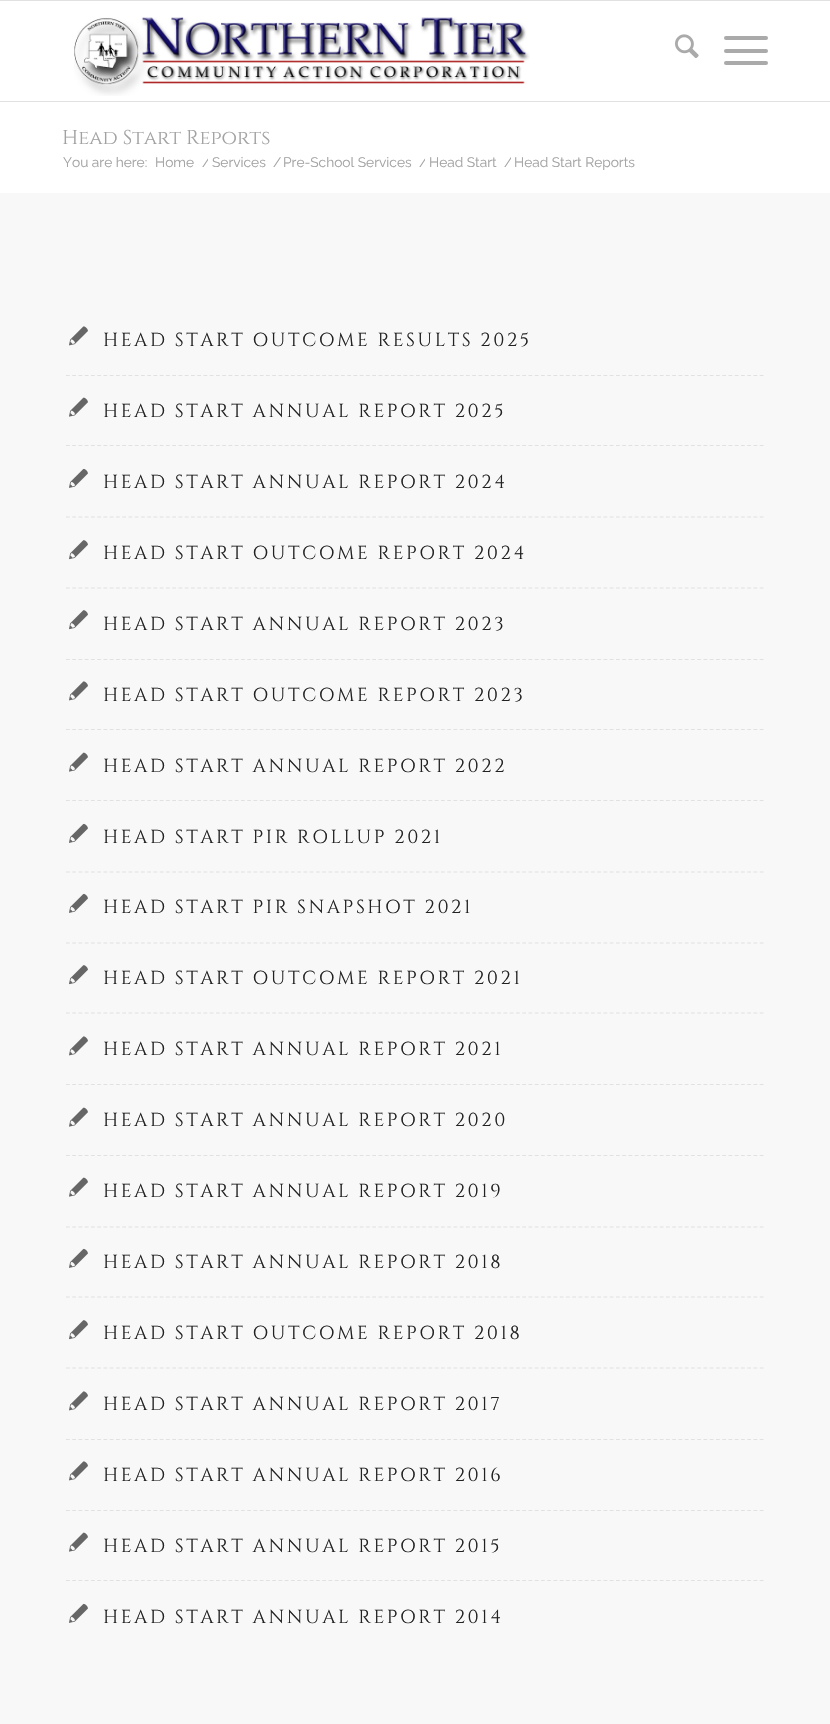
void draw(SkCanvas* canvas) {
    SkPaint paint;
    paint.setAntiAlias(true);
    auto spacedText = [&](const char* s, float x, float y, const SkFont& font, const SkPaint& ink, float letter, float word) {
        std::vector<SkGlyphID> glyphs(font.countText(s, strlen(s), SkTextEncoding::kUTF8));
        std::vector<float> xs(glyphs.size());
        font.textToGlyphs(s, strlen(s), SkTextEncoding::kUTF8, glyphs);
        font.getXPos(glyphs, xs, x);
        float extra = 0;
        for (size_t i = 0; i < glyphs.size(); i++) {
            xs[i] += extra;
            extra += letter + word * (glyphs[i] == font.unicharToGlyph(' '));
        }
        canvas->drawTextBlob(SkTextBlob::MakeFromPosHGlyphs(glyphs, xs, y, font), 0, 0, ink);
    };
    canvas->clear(0xFFFFFFFF);
    paint.setColor(0xFFE1E1E1);
    canvas->drawRect(SkRect::MakeXYWH(0, 0, 830, 1), paint);
    canvas->drawRect(SkRect::MakeXYWH(0, 101, 830, 1), paint);
    canvas->drawImageRect(SkImages::DeferredFromEncodedData(SkData::MakeFromFileName("img1.png")), SkRect::MakeXYWH(74, 17, 456, 79), SkSamplingOptions());
    canvas->drawImageRect(SkImages::DeferredFromEncodedData(SkData::MakeFromFileName("img2.png")), SkRect::MakeXYWH(675, 34, 24, 24), SkSamplingOptions());
    paint.setColor(0xFFAAAAAA);
    canvas->drawRoundRect(SkRect::MakeXYWH(724, 49, 44, 4), 2, 2, paint);
    canvas->drawRoundRect(SkRect::MakeXYWH(724, 36, 44, 4), 2, 2, paint);
    canvas->drawRoundRect(SkRect::MakeXYWH(724, 61, 44, 4), 2, 2, paint);
    SkFont font1(fontMgr->matchFamilyStyle("Cinzel", SkFontStyle::Normal()), 20);
    font1.setSubpixel(true);
    paint.setColor(0xFFA2A2A2);
    canvas->drawString("Head Start Reports", 62, 144, font1, paint);
    SkFont font2(fontMgr->matchFamilyStyle("Raleway", SkFontStyle(100, SkFontStyle::kNormal_Width, SkFontStyle::kUpright_Slant)), 13.75f);
    font2.setSubpixel(true);
    canvas->drawString("You are here:", 63, 167, font2, paint);
    canvas->drawString("Home", 155, 167, font2, paint);
    canvas->save();
    canvas->clipRect(SkRect::MakeXYWH(198, 154, 10, 19));
    canvas->drawString("/", 202, 167, font2, paint);
    canvas->restore();
    canvas->drawString("Services", 212, 167, font2, paint);
    canvas->drawString("/", 273, 167, font2, paint);
    canvas->drawString("Pre-School Services", 283, 167, font2, paint);
    canvas->save();
    canvas->clipRect(SkRect::MakeXYWH(415, 154, 10, 19));
    canvas->drawString("/", 419, 167, font2, paint);
    canvas->restore();
    canvas->drawString("Head Start", 429, 167, font2, paint);
    canvas->save();
    canvas->clipRect(SkRect::MakeXYWH(501, 154, 10, 19));
    canvas->drawString("/", 504, 167, font2, paint);
    canvas->restore();
    canvas->drawString("Head Start Reports", 514, 167, font2, paint);
    paint.setColor(0xFFF8F8F8);
    canvas->drawRect(SkRect::MakeXYWH(0, 193, 830, 1531), paint);
    paint.setStyle(SkPaint::kStroke_Style);
    paint.setStrokeWidth(1.2f);
    paint.setColor(0xFFE1E1E1);
    paint.setPathEffect(SkDashPathEffect::Make({{3.75f, 2.5f}}, 0));
    canvas->drawPath(SkPathBuilder().moveTo(66, 375.5f).lineTo(764, 375.5f).detach(), paint);
    paint.setPathEffect(nullptr);
    canvas->drawImageRect(SkImages::DeferredFromEncodedData(SkData::MakeFromFileName("img3.png")), SkRect::MakeXYWH(69, 326, 19, 20), SkSamplingOptions());
    SkFont font3(fontMgr->matchFamilyStyle("Cinzel", SkFontStyle::Normal()), 18.75f);
    font3.setSubpixel(true);
    paint.setStyle(SkPaint::kFill_Style);
    paint.setColor(0xFF222222);
    spacedText("HEAD START OUTCOME RESULTS 2025", 103, 346, font3, paint, 2.5f, 0);
    paint.setStyle(SkPaint::kStroke_Style);
    paint.setColor(0xFFE1E1E1);
    paint.setPathEffect(SkDashPathEffect::Make({{3.75f, 2.5f}}, 0));
    canvas->drawPath(SkPathBuilder().moveTo(66, 445.5f).lineTo(764, 445.5f).detach(), paint);
    paint.setPathEffect(nullptr);
    canvas->drawImageRect(SkImages::DeferredFromEncodedData(SkData::MakeFromFileName("img4.png")), SkRect::MakeXYWH(69, 397, 19, 20), SkSamplingOptions());
    paint.setStyle(SkPaint::kFill_Style);
    paint.setColor(0xFF222222);
    spacedText("HEAD START ANNUAL REPORT 2025", 103, 417, font3, paint, 2.5f, 0);
    paint.setStyle(SkPaint::kStroke_Style);
    paint.setColor(0xFFE1E1E1);
    paint.setPathEffect(SkDashPathEffect::Make({{3.75f, 2.5f}}, 0));
    canvas->drawPath(SkPathBuilder().moveTo(66, 517).lineTo(764, 517).detach(), paint);
    paint.setPathEffect(nullptr);
    canvas->drawImageRect(SkImages::DeferredFromEncodedData(SkData::MakeFromFileName("img5.png")), SkRect::MakeXYWH(69, 468, 19, 20), SkSamplingOptions());
    paint.setStyle(SkPaint::kFill_Style);
    paint.setColor(0xFF222222);
    spacedText("HEAD START ANNUAL REPORT 2024", 103, 488, font3, paint, 2.5f, 0);
    paint.setStyle(SkPaint::kStroke_Style);
    paint.setColor(0xFFE1E1E1);
    paint.setPathEffect(SkDashPathEffect::Make({{3.75f, 2.5f}}, 0));
    canvas->drawPath(SkPathBuilder().moveTo(66, 588).lineTo(764, 588).detach(), paint);
    paint.setPathEffect(nullptr);
    canvas->drawImageRect(SkImages::DeferredFromEncodedData(SkData::MakeFromFileName("img6.png")), SkRect::MakeXYWH(69, 540, 19, 20), SkSamplingOptions());
    paint.setStyle(SkPaint::kFill_Style);
    paint.setColor(0xFF222222);
    spacedText("HEAD START OUTCOME REPORT 2024", 103, 559, font3, paint, 2.5f, 0);
    paint.setStyle(SkPaint::kStroke_Style);
    paint.setColor(0xFFE1E1E1);
    paint.setPathEffect(SkDashPathEffect::Make({{3.75f, 2.5f}}, 0));
    canvas->drawPath(SkPathBuilder().moveTo(66, 659.5f).lineTo(764, 659.5f).detach(), paint);
    paint.setPathEffect(nullptr);
    canvas->drawImageRect(SkImages::DeferredFromEncodedData(SkData::MakeFromFileName("img6.png")), SkRect::MakeXYWH(69, 610, 19, 20), SkSamplingOptions());
    paint.setStyle(SkPaint::kFill_Style);
    paint.setColor(0xFF222222);
    spacedText("HEAD START ANNUAL REPORT 2023", 103, 630, font3, paint, 2.5f, 0);
    paint.setStyle(SkPaint::kStroke_Style);
    paint.setColor(0xFFE1E1E1);
    paint.setPathEffect(SkDashPathEffect::Make({{3.75f, 2.5f}}, 0));
    canvas->drawPath(SkPathBuilder().moveTo(66, 729.5f).lineTo(764, 729.5f).detach(), paint);
    paint.setPathEffect(nullptr);
    canvas->drawImageRect(SkImages::DeferredFromEncodedData(SkData::MakeFromFileName("img3.png")), SkRect::MakeXYWH(69, 681, 19, 20), SkSamplingOptions());
    paint.setStyle(SkPaint::kFill_Style);
    paint.setColor(0xFF222222);
    spacedText("HEAD START OUTCOME REPORT 2023", 103, 701, font3, paint, 2.5f, 0);
    paint.setStyle(SkPaint::kStroke_Style);
    paint.setColor(0xFFE1E1E1);
    paint.setPathEffect(SkDashPathEffect::Make({{3.75f, 2.5f}}, 0));
    canvas->drawPath(SkPathBuilder().moveTo(66, 800.5f).lineTo(764, 800.5f).detach(), paint);
    paint.setPathEffect(nullptr);
    canvas->drawImageRect(SkImages::DeferredFromEncodedData(SkData::MakeFromFileName("img4.png")), SkRect::MakeXYWH(69, 752, 19, 20), SkSamplingOptions());
    paint.setStyle(SkPaint::kFill_Style);
    paint.setColor(0xFF222222);
    spacedText("HEAD START ANNUAL REPORT 2022", 103, 772, font3, paint, 2.5f, 0);
    paint.setStyle(SkPaint::kStroke_Style);
    paint.setColor(0xFFE1E1E1);
    paint.setPathEffect(SkDashPathEffect::Make({{3.75f, 2.5f}}, 0));
    canvas->drawPath(SkPathBuilder().moveTo(66, 872).lineTo(764, 872).detach(), paint);
    paint.setPathEffect(nullptr);
    canvas->drawImageRect(SkImages::DeferredFromEncodedData(SkData::MakeFromFileName("img5.png")), SkRect::MakeXYWH(69, 823, 19, 20), SkSamplingOptions());
    paint.setStyle(SkPaint::kFill_Style);
    paint.setColor(0xFF222222);
    spacedText("HEAD START PIR ROLLUP 2021", 103, 843, font3, paint, 2.5f, 0);
    paint.setStyle(SkPaint::kStroke_Style);
    paint.setColor(0xFFE1E1E1);
    paint.setPathEffect(SkDashPathEffect::Make({{3.75f, 2.5f}}, 0));
    canvas->drawPath(SkPathBuilder().moveTo(66, 943).lineTo(764, 943).detach(), paint);
    paint.setPathEffect(nullptr);
    canvas->drawImageRect(SkImages::DeferredFromEncodedData(SkData::MakeFromFileName("img5.png")), SkRect::MakeXYWH(69, 893, 19, 20), SkSamplingOptions());
    paint.setStyle(SkPaint::kFill_Style);
    paint.setColor(0xFF222222);
    spacedText("HEAD START PIR SNAPSHOT 2021", 103, 913, font3, paint, 2.5f, 0);
    paint.setStyle(SkPaint::kStroke_Style);
    paint.setColor(0xFFE1E1E1);
    paint.setPathEffect(SkDashPathEffect::Make({{3.75f, 2.5f}}, 0));
    canvas->drawPath(SkPathBuilder().moveTo(66, 1013).lineTo(764, 1013).detach(), paint);
    paint.setPathEffect(nullptr);
    canvas->drawImageRect(SkImages::DeferredFromEncodedData(SkData::MakeFromFileName("img6.png")), SkRect::MakeXYWH(69, 965, 19, 20), SkSamplingOptions());
    paint.setStyle(SkPaint::kFill_Style);
    paint.setColor(0xFF222222);
    spacedText("HEAD START OUTCOME REPORT 2021", 103, 984, font3, paint, 2.5f, 0);
    paint.setStyle(SkPaint::kStroke_Style);
    paint.setColor(0xFFE1E1E1);
    paint.setPathEffect(SkDashPathEffect::Make({{3.75f, 2.5f}}, 0));
    canvas->drawPath(SkPathBuilder().moveTo(66, 1084.5f).lineTo(764, 1084.5f).detach(), paint);
    paint.setPathEffect(nullptr);
    canvas->drawImageRect(SkImages::DeferredFromEncodedData(SkData::MakeFromFileName("img3.png")), SkRect::MakeXYWH(69, 1036, 19, 20), SkSamplingOptions());
    paint.setStyle(SkPaint::kFill_Style);
    paint.setColor(0xFF222222);
    spacedText("HEAD START ANNUAL REPORT 2021", 103, 1055, font3, paint, 2.5f, 0);
    paint.setStyle(SkPaint::kStroke_Style);
    paint.setColor(0xFFE1E1E1);
    paint.setPathEffect(SkDashPathEffect::Make({{3.75f, 2.5f}}, 0));
    canvas->drawPath(SkPathBuilder().moveTo(66, 1155.5f).lineTo(764, 1155.5f).detach(), paint);
    paint.setPathEffect(nullptr);
    canvas->drawImageRect(SkImages::DeferredFromEncodedData(SkData::MakeFromFileName("img4.png")), SkRect::MakeXYWH(69, 1107, 19, 20), SkSamplingOptions());
    paint.setStyle(SkPaint::kFill_Style);
    paint.setColor(0xFF222222);
    spacedText("HEAD START ANNUAL REPORT 2020", 103, 1126, font3, paint, 2.5f, 0);
    paint.setStyle(SkPaint::kStroke_Style);
    paint.setColor(0xFFE1E1E1);
    paint.setPathEffect(SkDashPathEffect::Make({{3.75f, 2.5f}}, 0));
    canvas->drawPath(SkPathBuilder().moveTo(66, 1227).lineTo(764, 1227).detach(), paint);
    paint.setPathEffect(nullptr);
    canvas->drawImageRect(SkImages::DeferredFromEncodedData(SkData::MakeFromFileName("img4.png")), SkRect::MakeXYWH(69, 1177, 19, 20), SkSamplingOptions());
    paint.setStyle(SkPaint::kFill_Style);
    paint.setColor(0xFF222222);
    spacedText("HEAD START ANNUAL REPORT 2019", 103, 1197, font3, paint, 2.5f, 0);
    paint.setStyle(SkPaint::kStroke_Style);
    paint.setColor(0xFFE1E1E1);
    paint.setPathEffect(SkDashPathEffect::Make({{3.75f, 2.5f}}, 0));
    canvas->drawPath(SkPathBuilder().moveTo(66, 1297).lineTo(764, 1297).detach(), paint);
    paint.setPathEffect(nullptr);
    canvas->drawImageRect(SkImages::DeferredFromEncodedData(SkData::MakeFromFileName("img5.png")), SkRect::MakeXYWH(69, 1248, 19, 20), SkSamplingOptions());
    paint.setStyle(SkPaint::kFill_Style);
    paint.setColor(0xFF222222);
    spacedText("HEAD START ANNUAL REPORT 2018", 103, 1268, font3, paint, 2.5f, 0);
    paint.setStyle(SkPaint::kStroke_Style);
    paint.setColor(0xFFE1E1E1);
    paint.setPathEffect(SkDashPathEffect::Make({{3.75f, 2.5f}}, 0));
    canvas->drawPath(SkPathBuilder().moveTo(66, 1368).lineTo(764, 1368).detach(), paint);
    paint.setPathEffect(nullptr);
    canvas->drawImageRect(SkImages::DeferredFromEncodedData(SkData::MakeFromFileName("img6.png")), SkRect::MakeXYWH(69, 1320, 19, 20), SkSamplingOptions());
    paint.setStyle(SkPaint::kFill_Style);
    paint.setColor(0xFF222222);
    spacedText("HEAD START OUTCOME REPORT 2018", 103, 1339, font3, paint, 2.5f, 0);
    paint.setStyle(SkPaint::kStroke_Style);
    paint.setColor(0xFFE1E1E1);
    paint.setPathEffect(SkDashPathEffect::Make({{3.75f, 2.5f}}, 0));
    canvas->drawPath(SkPathBuilder().moveTo(66, 1439.5f).lineTo(764, 1439.5f).detach(), paint);
    paint.setPathEffect(nullptr);
    canvas->drawImageRect(SkImages::DeferredFromEncodedData(SkData::MakeFromFileName("img3.png")), SkRect::MakeXYWH(69, 1391, 19, 20), SkSamplingOptions());
    paint.setStyle(SkPaint::kFill_Style);
    paint.setColor(0xFF222222);
    spacedText("HEAD START ANNUAL REPORT 2017", 103, 1410, font3, paint, 2.5f, 0);
    paint.setStyle(SkPaint::kStroke_Style);
    paint.setColor(0xFFE1E1E1);
    paint.setPathEffect(SkDashPathEffect::Make({{3.75f, 2.5f}}, 0));
    canvas->drawPath(SkPathBuilder().moveTo(66, 1510.5f).lineTo(764, 1510.5f).detach(), paint);
    paint.setPathEffect(nullptr);
    canvas->drawImageRect(SkImages::DeferredFromEncodedData(SkData::MakeFromFileName("img3.png")), SkRect::MakeXYWH(69, 1461, 19, 20), SkSamplingOptions());
    paint.setStyle(SkPaint::kFill_Style);
    paint.setColor(0xFF222222);
    spacedText("HEAD START ANNUAL REPORT 2016", 103, 1481, font3, paint, 2.5f, 0);
    paint.setStyle(SkPaint::kStroke_Style);
    paint.setColor(0xFFE1E1E1);
    paint.setPathEffect(SkDashPathEffect::Make({{3.75f, 2.5f}}, 0));
    canvas->drawPath(SkPathBuilder().moveTo(66, 1580.5f).lineTo(764, 1580.5f).detach(), paint);
    paint.setPathEffect(nullptr);
    canvas->drawImageRect(SkImages::DeferredFromEncodedData(SkData::MakeFromFileName("img4.png")), SkRect::MakeXYWH(69, 1532, 19, 20), SkSamplingOptions());
    paint.setStyle(SkPaint::kFill_Style);
    paint.setColor(0xFF222222);
    spacedText("HEAD START ANNUAL REPORT 2015", 103, 1552, font3, paint, 2.5f, 0);
    canvas->drawImageRect(SkImages::DeferredFromEncodedData(SkData::MakeFromFileName("img5.png")), SkRect::MakeXYWH(69, 1603, 19, 20), SkSamplingOptions());
    spacedText("HEAD START ANNUAL REPORT 2014", 103, 1623, font3, paint, 2.5f, 0);
}
